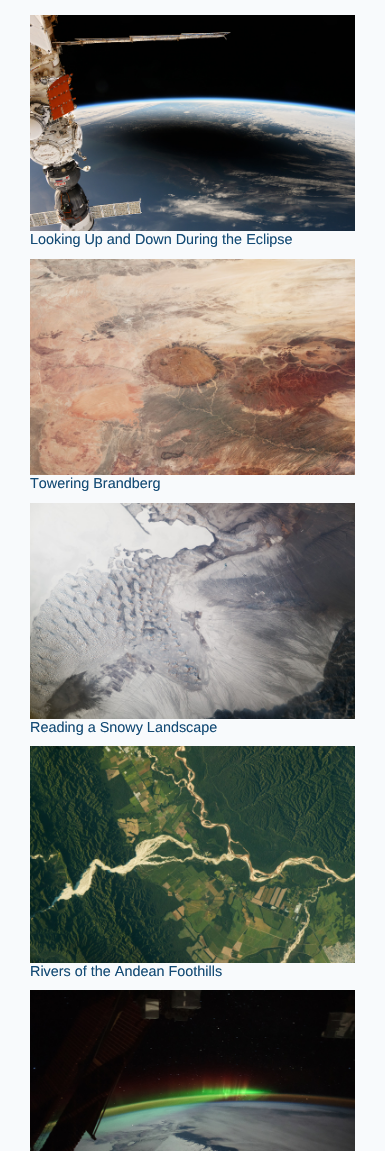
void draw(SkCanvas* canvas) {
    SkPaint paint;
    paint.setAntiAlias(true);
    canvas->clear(0xFFFFFFFF);
    {
        const SkColor colors[] = {0xFFF8FAFC, 0xFFF8FAFC, 0xFFEBEFF4};
        const float stops[] = {0.8f, 0.97f, 1};
        const SkPoint ends[] = {{193, 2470}, {193, -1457}};
        paint.setShader(SkGradientShader::MakeLinear(ends, colors, stops, 3, SkTileMode::kClamp));
        paint.setAlpha(255);
    }
    canvas->drawRect(SkRect::MakeXYWH(0, 0, 385, 1151), paint);
    canvas->drawImageRect(SkImages::DeferredFromEncodedData(SkData::MakeFromFileName("img1.png")), SkRect::MakeXYWH(30, 15, 325, 216), SkSamplingOptions());
    SkFont font1(fontMgr->matchFamilyStyle("Liberation Sans", SkFontStyle::Normal()), 14.4f);
    font1.setSubpixel(true);
    paint.setShader(nullptr);
    paint.setColor(0xFF144B75);
    canvas->drawString("Looking Up and Down During the Eclipse", 30, 244, font1, paint);
    canvas->drawImageRect(SkImages::DeferredFromEncodedData(SkData::MakeFromFileName("img2.png")), SkRect::MakeXYWH(30, 259, 325, 216), SkSamplingOptions());
    canvas->drawString("Towering Brandberg", 30, 488, font1, paint);
    canvas->drawImageRect(SkImages::DeferredFromEncodedData(SkData::MakeFromFileName("img3.png")), SkRect::MakeXYWH(30, 503, 325, 216), SkSamplingOptions());
    canvas->drawString("Reading a Snowy Landscape", 30, 732, font1, paint);
    canvas->drawImageRect(SkImages::DeferredFromEncodedData(SkData::MakeFromFileName("img4.png")), SkRect::MakeXYWH(30, 746, 325, 217), SkSamplingOptions());
    canvas->drawString("Rivers of the Andean Foothills", 30, 976, font1, paint);
    canvas->drawImageRect(SkImages::DeferredFromEncodedData(SkData::MakeFromFileName("img5.png")), SkRect::MakeXYWH(30, 990, 325, 161), SkSamplingOptions());
}
